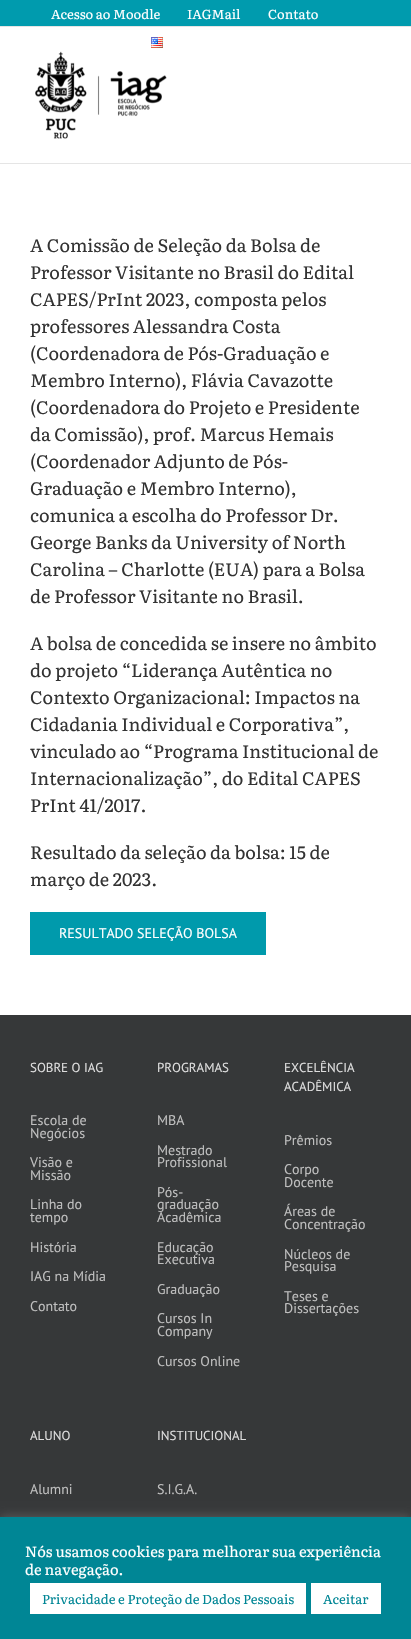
void draw(SkCanvas* canvas) {
    SkPaint paint;
    paint.setAntiAlias(true);
    canvas->clear(0xFFFFFFFF);
    paint.setColor(0xFF009BAE);
    canvas->drawRect(SkRect::MakeXYWH(0, 0, 411, 26), paint);
    paint.setColor(0xFFE5E5E5);
    canvas->drawRect(SkRect::MakeXYWH(0, 26, 411, 1), paint);
    SkFont font1(fontMgr->matchFamilyStyle("Literata", SkFontStyle::Normal()), 13);
    font1.setSubpixel(true);
    paint.setColor(0xFFFFFFFF);
    canvas->drawString("Acesso ao Moodle", 51, 19, font1, paint);
    canvas->drawString("IAGMail", 187, 19, font1, paint);
    canvas->drawString("Contato", 268, 19, font1, paint);
    canvas->drawImageRect(SkImages::DeferredFromEncodedData(SkData::MakeFromFileName("img1.png")), SkRect::MakeXYWH(151, 37, 12, 11), SkSamplingOptions());
    paint.setColor(0xFFE5E5E5);
    canvas->drawRect(SkRect::MakeXYWH(0, 163, 411, 1), paint);
    canvas->drawImageRect(SkImages::DeferredFromEncodedData(SkData::MakeFromFileName("img2.png")), SkRect::MakeXYWH(35, 51, 132, 88), SkSamplingOptions());
    SkFont font2(fontMgr->matchFamilyStyle("Literata", SkFontStyle::Normal()), 18);
    font2.setSubpixel(true);
    paint.setColor(0xFF333333);
    canvas->drawString("A Comissão de Seleção da Bolsa de", 30, 252, font2, paint);
    canvas->drawString("Professor Visitante no Brasil do Edital", 30, 279, font2, paint);
    canvas->drawString("CAPES/PrInt 2023, composta pelos", 30, 306, font2, paint);
    canvas->drawString("professores Alessandra Costa", 30, 333, font2, paint);
    canvas->drawString("(Coordenadora de Pós-Graduação e", 30, 360, font2, paint);
    canvas->drawString("Membro Interno), Flávia Cavazotte", 30, 387, font2, paint);
    canvas->drawString("(Coordenadora do Projeto e Presidente", 30, 414, font2, paint);
    canvas->drawString("da Comissão), prof. Marcus Hemais", 30, 441, font2, paint);
    canvas->drawString("(Coordenador Adjunto de Pós-", 30, 468, font2, paint);
    canvas->drawString("Graduação e Membro Interno),", 30, 495, font2, paint);
    canvas->drawString("comunica a escolha do Professor Dr.", 30, 522, font2, paint);
    canvas->drawString("George Banks da University of North", 30, 549, font2, paint);
    canvas->drawString("Carolina – Charlotte (EUA) para a Bolsa", 30, 576, font2, paint);
    canvas->drawString("de Professor Visitante no Brasil.", 30, 603, font2, paint);
    canvas->drawString("A bolsa de concedida se insere no âmbito", 30, 650, font2, paint);
    canvas->drawString("do projeto “Liderança Autêntica no", 30, 677, font2, paint);
    canvas->drawString("Contexto Organizacional: Impactos na", 30, 704, font2, paint);
    canvas->drawString("Cidadania Individual e Corporativa”,", 30, 731, font2, paint);
    canvas->drawString("vinculado ao “Programa Institucional de", 30, 758, font2, paint);
    canvas->drawString("Internacionalização”, do Edital CAPES", 30, 785, font2, paint);
    canvas->drawString("PrInt 41/2017.", 30, 812, font2, paint);
    canvas->drawString("Resultado da seleção da bolsa: 15 de", 30, 859, font2, paint);
    canvas->drawString("março de 2023.", 30, 886, font2, paint);
    paint.setColor(0xFF009AAC);
    canvas->drawRect(SkRect::MakeXYWH(30, 912, 236, 43), paint);
    SkFont font3(fontMgr->matchFamilyStyle("PT Sans", SkFontStyle::Normal()), 14);
    font3.setSubpixel(true);
    paint.setColor(0xFFFFFFFF);
    canvas->drawString("RESULTADO SELEÇÃO BOLSA", 59, 938, font3, paint);
    paint.setColor(0xFF363839);
    canvas->drawRect(SkRect::MakeXYWH(0, 1015, 411, 502), paint);
    SkFont font4(fontMgr->matchFamilyStyle("PT Sans", SkFontStyle::Normal()), 13);
    font4.setSubpixel(true);
    paint.setColor(0xFFDDDDDD);
    canvas->drawString("SOBRE O IAG", 30, 1072, font4, paint);
    paint.setColor(0xFFBFBFBF);
    canvas->drawString("Escola de", 30, 1125, font3, paint);
    canvas->drawString("Negócios", 30, 1138, font3, paint);
    canvas->drawString("Visão e", 30, 1167, font3, paint);
    canvas->drawString("Missão", 30, 1180, font3, paint);
    canvas->drawString("Linha do", 30, 1209, font3, paint);
    canvas->drawString("tempo", 30, 1222, font3, paint);
    canvas->drawString("História", 30, 1252, font3, paint);
    canvas->drawString("IAG na Mídia", 30, 1281, font3, paint);
    canvas->drawString("Contato", 30, 1311, font3, paint);
    paint.setColor(0xFFDDDDDD);
    canvas->drawString("PROGRAMAS", 157, 1072, font4, paint);
    paint.setColor(0xFFBFBFBF);
    canvas->drawString("MBA", 157, 1125, font3, paint);
    canvas->drawString("Mestrado", 157, 1155, font3, paint);
    canvas->drawString("Profissional", 157, 1167, font3, paint);
    canvas->drawString("Pós-", 157, 1197, font3, paint);
    canvas->drawString("graduação", 157, 1209, font3, paint);
    canvas->drawString("Acadêmica", 157, 1222, font3, paint);
    canvas->drawString("Educação", 157, 1252, font3, paint);
    canvas->drawString("Executiva", 157, 1264, font3, paint);
    canvas->drawString("Graduação", 157, 1294, font3, paint);
    canvas->drawString("Cursos In", 157, 1323, font3, paint);
    canvas->drawString("Company", 157, 1336, font3, paint);
    canvas->drawString("Cursos Online", 157, 1366, font3, paint);
    paint.setColor(0xFFDDDDDD);
    canvas->drawString("EXCELÊNCIA", 284, 1072, font4, paint);
    canvas->drawString("ACADÊMICA", 284, 1091, font4, paint);
    paint.setColor(0xFFBFBFBF);
    canvas->drawString("Prêmios", 284, 1145, font3, paint);
    canvas->drawString("Corpo", 284, 1174, font3, paint);
    canvas->drawString("Docente", 284, 1187, font3, paint);
    canvas->drawString("Áreas de", 284, 1216, font3, paint);
    canvas->drawString("Concentração", 284, 1229, font3, paint);
    canvas->drawString("Núcleos de", 284, 1259, font3, paint);
    canvas->drawString("Pesquisa", 284, 1271, font3, paint);
    canvas->drawString("Teses e", 284, 1301, font3, paint);
    canvas->drawString("Dissertações", 284, 1313, font3, paint);
    paint.setColor(0xFFDDDDDD);
    canvas->drawString("ALUNO", 30, 1440, font4, paint);
    paint.setColor(0xFFBFBFBF);
    canvas->drawString("Alumni", 30, 1494, font3, paint);
    paint.setColor(0xFFDDDDDD);
    canvas->drawString("INSTITUCIONAL", 157, 1440, font4, paint);
    paint.setColor(0xFFBFBFBF);
    canvas->drawString("S.I.G.A.", 157, 1494, font3, paint);
    paint.setColor(0x4DACABAB);
    paint.setMaskFilter(SkMaskFilter::MakeBlur(kNormal_SkBlurStyle, 5));
    canvas->drawRect(SkRect::MakeXYWH(0, 1516, 411, 122), paint);
    paint.setMaskFilter(nullptr);
    paint.setColor(0xFF008695);
    canvas->drawRect(SkRect::MakeXYWH(0, 1517, 411, 122), paint);
    SkFont font5(fontMgr->matchFamilyStyle("Literata", SkFontStyle::Normal()), 14.7f);
    font5.setSubpixel(true);
    paint.setColor(0xFFFFFFFF);
    canvas->drawString("Nós usamos cookies para melhorar sua experiência", 25, 1557, font5, paint);
    canvas->drawString("de navegação.", 25, 1575, font5, paint);
    canvas->drawRect(SkRect::MakeXYWH(30, 1583, 276, 31), paint);
    paint.setColor(0xFF008695);
    canvas->drawString("Privacidade e Proteção de Dados Pessoais", 42, 1604, font1, paint);
    paint.setColor(0xFFFFFFFF);
    canvas->drawRect(SkRect::MakeXYWH(311, 1583, 70, 31), paint);
    paint.setColor(0xFF008695);
    canvas->drawString("Aceitar", 323, 1604, font1, paint);
}
